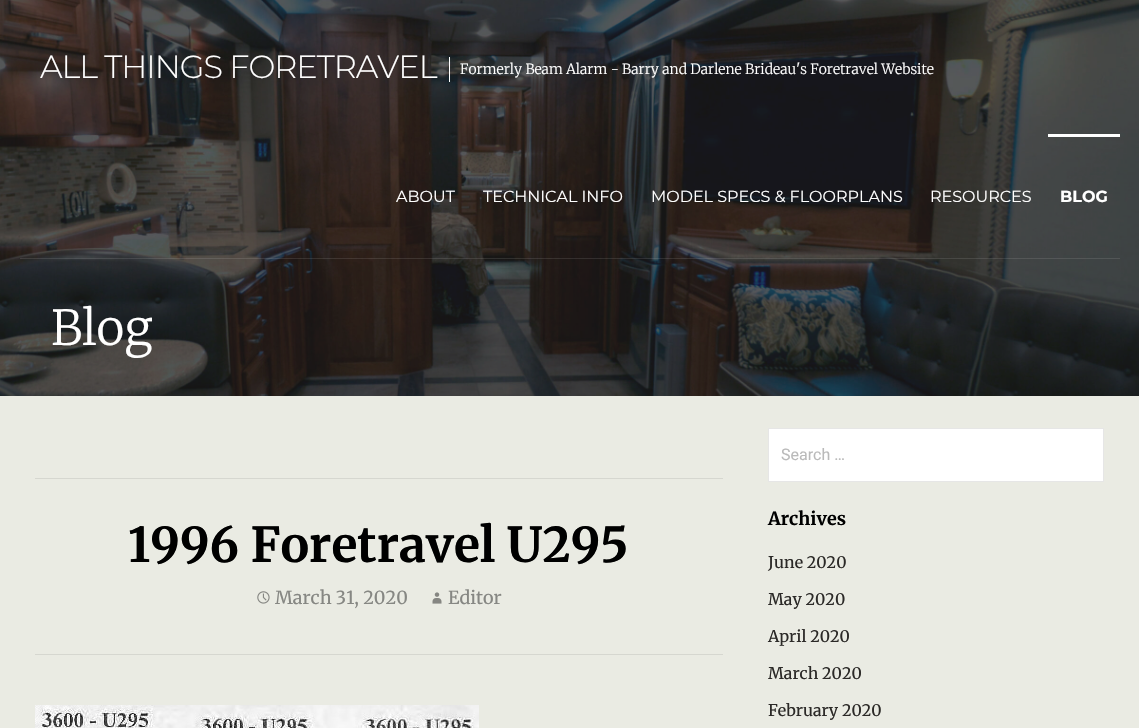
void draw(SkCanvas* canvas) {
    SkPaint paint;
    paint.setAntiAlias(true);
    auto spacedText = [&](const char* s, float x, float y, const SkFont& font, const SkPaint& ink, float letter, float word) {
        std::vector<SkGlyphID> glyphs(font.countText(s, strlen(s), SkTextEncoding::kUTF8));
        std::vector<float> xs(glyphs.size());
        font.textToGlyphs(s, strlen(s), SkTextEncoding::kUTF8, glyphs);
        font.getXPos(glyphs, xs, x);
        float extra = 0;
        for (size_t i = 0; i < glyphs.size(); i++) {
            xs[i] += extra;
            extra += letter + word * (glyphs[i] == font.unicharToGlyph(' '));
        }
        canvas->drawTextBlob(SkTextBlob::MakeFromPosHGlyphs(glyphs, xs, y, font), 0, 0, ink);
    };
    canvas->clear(0xFFEAEBE3);
    canvas->drawImageRect(SkImages::DeferredFromEncodedData(SkData::MakeFromFileName("img1.png")), SkRect::MakeXYWH(0, 0, 1139, 396), SkSamplingOptions());
    paint.setColor(0x1AFFFFFF);
    canvas->drawRect(SkRect::MakeXYWH(20, 258, 1100, 1), paint);
    SkFont font1(fontMgr->matchFamilyStyle("Montserrat", SkFontStyle(300, SkFontStyle::kNormal_Width, SkFontStyle::kUpright_Slant)), 32);
    font1.setSubpixel(true);
    paint.setColor(0xFFFFFFFF);
    spacedText("ALL THINGS FORETRAVEL", 40, 78, font1, paint, -1, 0);
    canvas->drawRect(SkRect::MakeXYWH(449, 57, 1, 25), paint);
    SkFont font2(fontMgr->matchFamilyStyle("Merriweather", SkFontStyle(300, SkFontStyle::kNormal_Width, SkFontStyle::kUpright_Slant)), 14);
    font2.setSubpixel(true);
    canvas->drawString("Formerly Beam Alarm - Barry and Darlene Brideau's Foretravel Website", 460, 74, font2, paint);
    SkFont font3(fontMgr->matchFamilyStyle("Montserrat", SkFontStyle::Normal()), 16);
    font3.setSubpixel(true);
    canvas->drawString("ABOUT", 396, 202, font3, paint);
    canvas->drawString("TECHNICAL INFO", 483, 202, font3, paint);
    canvas->drawString("MODEL SPECS & FLOORPLANS", 651, 202, font3, paint);
    canvas->drawString("RESOURCES", 930, 202, font3, paint);
    canvas->drawRect(SkRect::MakeXYWH(1048, 134, 72, 3), paint);
    SkFont font4(fontMgr->matchFamilyStyle("Montserrat", SkFontStyle::Bold()), 16);
    font4.setSubpixel(true);
    canvas->drawString("BLOG", 1060, 202, font4, paint);
    SkFont font5(fontMgr->matchFamilyStyle("Merriweather", SkFontStyle(300, SkFontStyle::kNormal_Width, SkFontStyle::kUpright_Slant)), 48);
    font5.setSubpixel(true);
    canvas->drawString("Blog", 51, 345, font5, paint);
    paint.setColor(0xFFD6D7D0);
    canvas->drawRect(SkRect::MakeXYWH(35, 478, 688, 1), paint);
    canvas->drawRect(SkRect::MakeXYWH(35, 654, 688, 1), paint);
    SkFont font6(fontMgr->matchFamilyStyle("Merriweather", SkFontStyle::Bold()), 48);
    font6.setSubpixel(true);
    paint.setColor(0xFF000000);
    canvas->drawString("1996 Foretravel U295", 128, 562, font6, paint);
    canvas->drawImageRect(SkImages::DeferredFromEncodedData(SkData::MakeFromFileName("img2.png")), SkRect::MakeXYWH(257, 591, 13, 13), SkSamplingOptions());
    SkFont font7(fontMgr->matchFamilyStyle("Merriweather", SkFontStyle::Normal()), 18);
    font7.setSubpixel(true);
    paint.setColor(0xFF868783);
    canvas->drawString("March 31, 2020", 275, 604, font7, paint);
    canvas->drawImageRect(SkImages::DeferredFromEncodedData(SkData::MakeFromFileName("img3.png")), SkRect::MakeXYWH(432, 592, 10, 12), SkSamplingOptions());
    canvas->drawString("Editor", 448, 604, font7, paint);
    canvas->drawImageRect(SkImages::DeferredFromEncodedData(SkData::MakeFromFileName("img4.png")), SkRect::MakeXYWH(35, 705, 444, 23), SkSamplingOptions());
    paint.setColor(0xFFFFFFFF);
    canvas->drawRect(SkRect::MakeXYWH(768.5f, 428.5f, 335, 53), paint);
    paint.setStyle(SkPaint::kStroke_Style);
    paint.setStrokeWidth(1);
    paint.setColor(0xFFE6E6E6);
    canvas->drawRect(SkRect::MakeXYWH(768.5f, 428.5f, 335, 53), paint);
    SkFont font8(fontMgr->matchFamilyStyle("Roboto", SkFontStyle::Normal()), 16);
    font8.setSubpixel(true);
    paint.setStyle(SkPaint::kFill_Style);
    paint.setColor(0xFFBABABA);
    canvas->drawString("Search …", 781, 460, font8, paint);
    SkFont font9(fontMgr->matchFamilyStyle("Merriweather", SkFontStyle::Bold()), 18);
    font9.setSubpixel(true);
    paint.setColor(0xFF000000);
    canvas->drawString("Archives", 768, 525, font9, paint);
    SkFont font10(fontMgr->matchFamilyStyle("Merriweather", SkFontStyle::Normal()), 16);
    font10.setSubpixel(true);
    paint.setColor(0xFF2B2927);
    canvas->drawString("June 2020", 768, 568, font10, paint);
    canvas->drawString("May 2020", 768, 605, font10, paint);
    canvas->drawString("April 2020", 768, 642, font10, paint);
    canvas->drawString("March 2020", 768, 679, font10, paint);
    canvas->drawString("February 2020", 768, 716, font10, paint);
}
